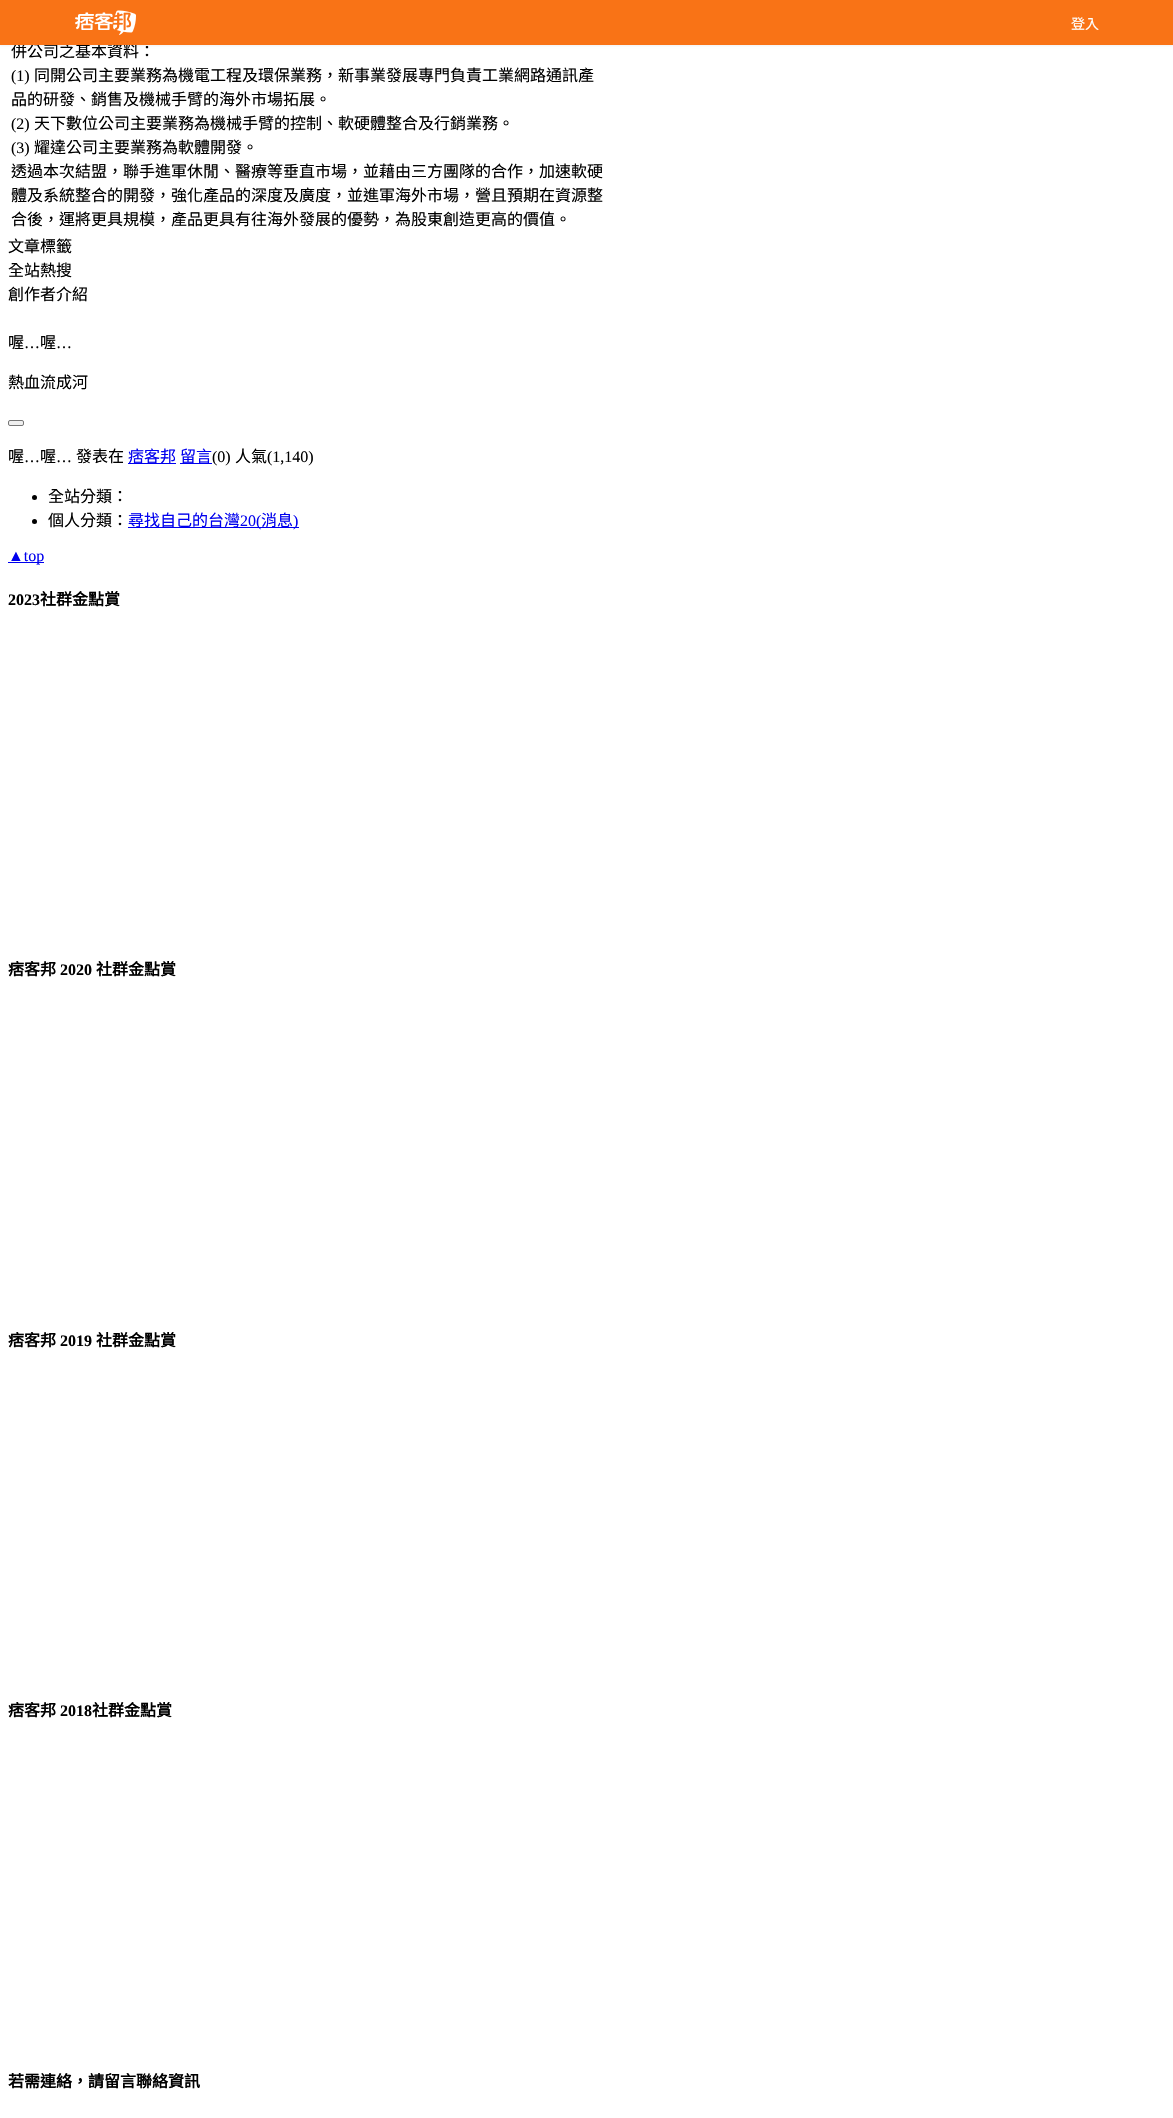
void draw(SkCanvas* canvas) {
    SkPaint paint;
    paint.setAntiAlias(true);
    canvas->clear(0xFFFFFFFF);
    paint.setColor(0x0D000000);
    paint.setMaskFilter(SkMaskFilter::MakeBlur(kNormal_SkBlurStyle, 1));
    canvas->drawRect(SkRect::MakeXYWH(0, 1, 1173, 45), paint);
    paint.setMaskFilter(nullptr);
    SkFont font1(fontMgr->matchFamilyStyle("Noto Sans CJK TC", SkFontStyle::Normal()), 16);
    font1.setSubpixel(true);
    paint.setColor(0xFF000000);
    canvas->drawString("併公司之基本資料：", 11, 57, font1, paint);
    paint.setColor(0xFFF97316);
    canvas->drawRect(SkRect::MakeXYWH(0, 0, 1173, 45), paint);
    canvas->drawImageRect(SkImages::DeferredFromEncodedData(SkData::MakeFromFileName("img1.png")), SkRect::MakeXYWH(75, 10, 61, 25), SkSamplingOptions());
    SkFont font2(fontMgr->matchFamilyStyle("Noto Sans CJK TC", SkFontStyle::Normal()), 14);
    font2.setSubpixel(true);
    paint.setColor(0xFFFFFFFF);
    canvas->drawString("登入", 1071, 29, font2, paint);
    SkFont font3(fontMgr->matchFamilyStyle("Liberation Serif", SkFontStyle::Normal()), 16);
    font3.setSubpixel(true);
    paint.setColor(0xFF000000);
    canvas->drawString("(1)", 11, 81, font3, paint);
    canvas->drawString("同開公司主要業務為機電工程及環保業務，新事業發展專門負責工業網路通訊產", 34, 81, font1, paint);
    canvas->drawString("品的研發、銷售及機械手臂的海外市場拓展。", 11, 105, font1, paint);
    canvas->drawString("(2)", 11, 129, font3, paint);
    canvas->drawString("天下數位公司主要業務為機械手臂的控制、軟硬體整合及行銷業務。", 34, 129, font1, paint);
    canvas->drawString("(3)", 11, 153, font3, paint);
    canvas->drawString("耀達公司主要業務為軟體開發。", 34, 153, font1, paint);
    canvas->drawString("透過本次結盟，聯手進軍休閒、醫療等垂直市場，並藉由三方團隊的合作，加速軟硬", 11, 177, font1, paint);
    canvas->drawString("體及系統整合的開發，強化產品的深度及廣度，並進軍海外市場，營且預期在資源整", 11, 201, font1, paint);
    canvas->drawString("合後，運將更具規模，產品更具有往海外發展的優勢，為股東創造更高的價值。", 11, 225, font1, paint);
    canvas->drawString("文章標籤", 8, 252, font1, paint);
    canvas->drawString("全站熱搜", 8, 276, font1, paint);
    canvas->drawString("創作者介紹", 8, 300, font1, paint);
    canvas->drawString("喔", 8, 348, font1, paint);
    canvas->drawString("…", 24, 348, font3, paint);
    canvas->drawString("喔", 40, 348, font1, paint);
    canvas->drawString("…", 56, 348, font3, paint);
    canvas->drawString("熱血流成河", 8, 388, font1, paint);
    paint.setColor(0xFFEFEFEF);
    canvas->drawRoundRect(SkRect::MakeXYWH(8.5f, 420.5f, 15, 5), 1.5f, 1.5f, paint);
    paint.setStyle(SkPaint::kStroke_Style);
    paint.setStrokeWidth(1);
    paint.setColor(0xFF767676);
    canvas->drawRoundRect(SkRect::MakeXYWH(8.5f, 420.5f, 15, 5), 1.5f, 1.5f, paint);
    paint.setStyle(SkPaint::kFill_Style);
    paint.setColor(0xFF000000);
    canvas->drawString("喔", 8, 462, font1, paint);
    canvas->drawString("…", 24, 462, font3, paint);
    canvas->drawString("喔", 40, 462, font1, paint);
    canvas->drawString("…", 56, 462, font3, paint);
    canvas->drawString("發表在", 76, 462, font1, paint);
    paint.setColor(0xFF0000EE);
    canvas->drawRect(SkRect::MakeXYWH(128, 463, 48, 1), paint);
    canvas->drawString("痞客邦", 128, 462, font1, paint);
    canvas->drawRect(SkRect::MakeXYWH(180, 463, 32, 1), paint);
    canvas->drawString("留言", 180, 462, font1, paint);
    paint.setColor(0xFF000000);
    canvas->drawString("(0)", 212, 462, font3, paint);
    canvas->drawString("人氣", 235, 462, font1, paint);
    canvas->drawString("(1,140)", 267, 462, font3, paint);
    canvas->drawCircle(34.5f, 497.5f, 2.5f, paint);
    canvas->drawString("全站分類：", 48, 502, font1, paint);
    canvas->drawCircle(34.5f, 521.5f, 2.5f, paint);
    canvas->drawString("個人分類：", 48, 526, font1, paint);
    paint.setColor(0xFF0000EE);
    canvas->drawRect(SkRect::MakeXYWH(128, 527, 171, 1), paint);
    canvas->drawString("尋找自己的台灣", 128, 526, font1, paint);
    canvas->drawString("20(", 240, 526, font3, paint);
    canvas->drawString("消息", 261, 526, font1, paint);
    canvas->drawString(")", 293, 526, font3, paint);
    canvas->drawRect(SkRect::MakeXYWH(8, 562, 36, 1), paint);
    canvas->drawString("▲top", 8, 561, font3, paint);
    SkFont font4(fontMgr->matchFamilyStyle("Liberation Serif", SkFontStyle::Bold()), 16);
    font4.setSubpixel(true);
    paint.setColor(0xFF000000);
    canvas->drawString("2023", 8, 605, font4, paint);
    SkFont font5(fontMgr->matchFamilyStyle("Noto Sans CJK TC", SkFontStyle::Bold()), 16);
    font5.setSubpixel(true);
    canvas->drawString("社群金點賞", 40, 605, font5, paint);
    canvas->drawString("痞客邦", 8, 975, font5, paint);
    canvas->drawString("2020", 60, 975, font4, paint);
    canvas->drawString("社群金點賞", 96, 975, font5, paint);
    canvas->drawString("痞客邦", 8, 1346, font5, paint);
    canvas->drawString("2019", 60, 1346, font4, paint);
    canvas->drawString("社群金點賞", 96, 1346, font5, paint);
    canvas->drawString("痞客邦", 8, 1716, font5, paint);
    canvas->drawString("2018", 60, 1716, font4, paint);
    canvas->drawString("社群金點賞", 92, 1716, font5, paint);
    canvas->drawString("若需連絡，請留言聯絡資訊", 8, 2087, font5, paint);
}
